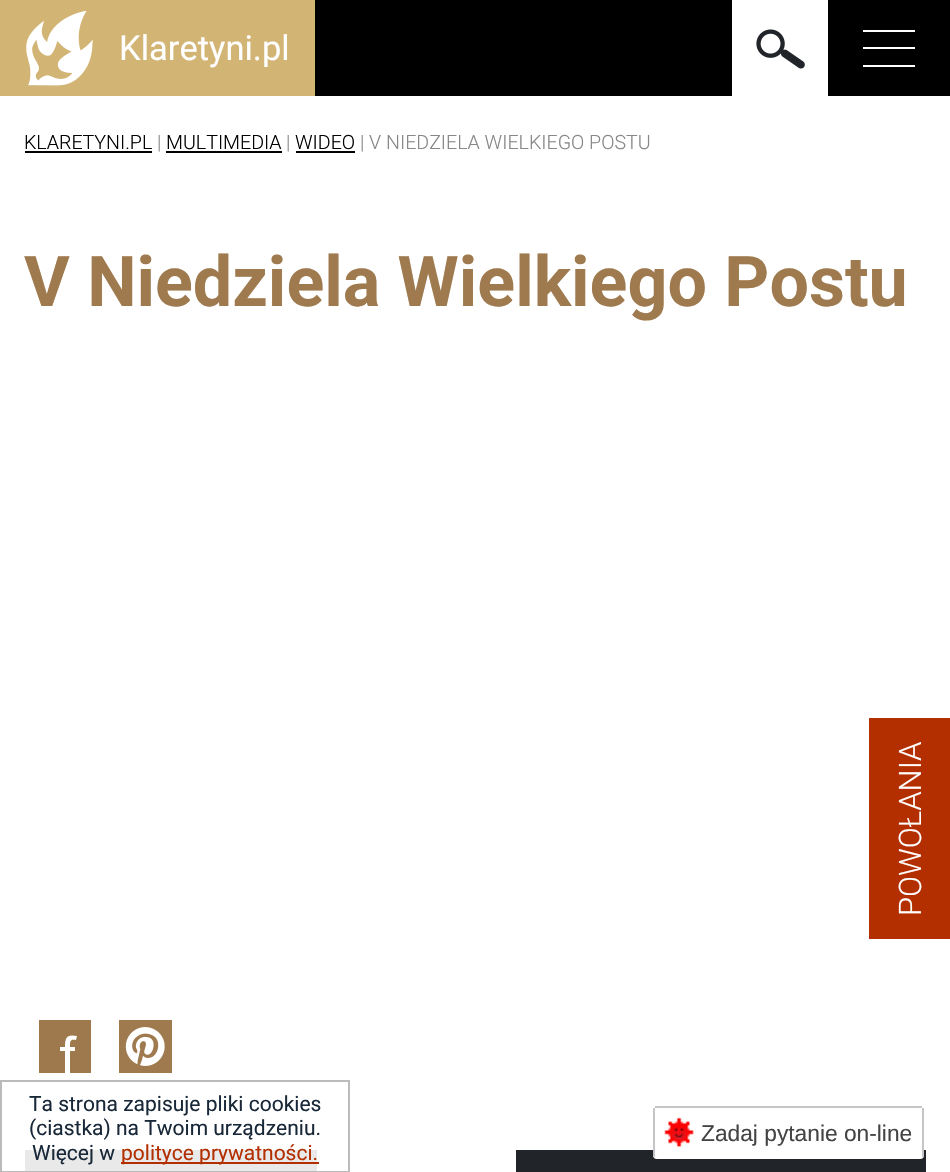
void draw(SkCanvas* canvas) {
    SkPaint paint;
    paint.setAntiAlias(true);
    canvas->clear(0xFFFFFFFF);
    paint.setColor(0xFF000000);
    canvas->drawRect(SkRect::MakeXYWH(315, 0, 635, 96), paint);
    paint.setColor(0xFFD2B474);
    canvas->drawRect(SkRect::MakeXYWH(0, 0, 315, 96), paint);
    canvas->drawImageRect(SkImages::DeferredFromEncodedData(SkData::MakeFromFileName("img1.png")), SkRect::MakeXYWH(26, 11, 67, 75), SkSamplingOptions());
    SkFont font1(fontMgr->matchFamilyStyle("Roboto", SkFontStyle::Normal()), 34.5f);
    font1.setSubpixel(true);
    paint.setColor(0xFFFFFFFF);
    canvas->drawString("Klaretyni.pl", 119, 60, font1, paint);
    canvas->drawRect(SkRect::MakeXYWH(732, 0, 96, 96), paint);
    canvas->drawImageRect(SkImages::DeferredFromEncodedData(SkData::MakeFromFileName("img2.png")), SkRect::MakeXYWH(756, 29, 49, 40), SkSamplingOptions());
    canvas->drawRect(SkRect::MakeXYWH(863, 47, 52, 2), paint);
    canvas->drawRect(SkRect::MakeXYWH(863, 30, 52, 2), paint);
    canvas->drawRect(SkRect::MakeXYWH(863, 65, 52, 2), paint);
    SkFont font2(fontMgr->matchFamilyStyle("Roboto", SkFontStyle(300, SkFontStyle::kNormal_Width, SkFontStyle::kUpright_Slant)), 19.6f);
    font2.setSubpixel(true);
    paint.setColor(0xFF000000);
    canvas->drawString("KLARETYNI.PL", 24, 149, font2, paint);
    canvas->drawRect(SkRect::MakeXYWH(25, 151, 127, 2), paint);
    paint.setColor(0xFF878787);
    canvas->drawString("|", 157, 149, font2, paint);
    paint.setColor(0xFF000000);
    canvas->drawString("MULTIMEDIA", 166, 149, font2, paint);
    canvas->drawRect(SkRect::MakeXYWH(166, 151, 116, 2), paint);
    paint.setColor(0xFF878787);
    canvas->drawString("|", 286, 149, font2, paint);
    paint.setColor(0xFF000000);
    canvas->drawString("WIDEO", 295, 149, font2, paint);
    canvas->drawRect(SkRect::MakeXYWH(296, 151, 59, 2), paint);
    paint.setColor(0xFF878787);
    canvas->drawString("| V NIEDZIELA WIELKIEGO POSTU", 360, 149, font2, paint);
    SkFont font3(fontMgr->matchFamilyStyle("Roboto", SkFontStyle::Bold()), 70);
    font3.setSubpixel(true);
    paint.setColor(0xFF9E7A4E);
    canvas->drawString("V Niedziela Wielkiego Postu", 24, 306, font3, paint);
    paint.setColor(0xFF9D794D);
    canvas->drawRect(SkRect::MakeXYWH(39, 1020, 52, 53), paint);
    canvas->save();
    canvas->clipRect(SkRect::MakeXYWH(39, 1020, 52, 53));
    paint.setColor(0xFFFFFFFF);
    canvas->drawPath(SkPathBuilder().moveTo(65, 1075).lineTo(65, 1051).lineTo(60, 1051).lineTo(60, 1047).lineTo(65, 1047).cubicTo(65, 1037, 67, 1034, 77, 1036).lineTo(76, 1040).cubicTo(70, 1039, 70, 1041, 70, 1047).lineTo(75, 1047).lineTo(75, 1051).lineTo(70, 1051).lineTo(70, 1075).close().detach(), paint);
    canvas->restore();
    canvas->drawImageRect(SkImages::DeferredFromEncodedData(SkData::MakeFromFileName("img3.png")), SkRect::MakeXYWH(119, 1020, 53, 53), SkSamplingOptions());
    paint.setColor(0xFFE9E9EA);
    canvas->drawRect(SkRect::MakeXYWH(25, 1150, 292, 21), paint);
    paint.setColor(0xFF212529);
    canvas->drawRect(SkRect::MakeXYWH(516, 1150, 410, 22), paint);
    paint.setColor(0xFFB32F00);
    canvas->drawRect(SkRect::MakeXYWH(869, 718, 81, 221), paint);
    SkFont font4(fontMgr->matchFamilyStyle("Roboto", SkFontStyle(300, SkFontStyle::kNormal_Width, SkFontStyle::kUpright_Slant)), 31);
    font4.setSubpixel(true);
    paint.setColor(0xFFFFFFFF);
    canvas->save();
    canvas->rotate(-90, 921, 916);
    canvas->drawString("POWOŁANIA", 921, 916, font4, paint);
    canvas->restore();
    paint.setStyle(SkPaint::kStroke_Style);
    paint.setStrokeWidth(2);
    paint.setColor(0xFFBBBBBB);
    canvas->drawRect(SkRect::MakeXYWH(1, 1081, 348, 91), paint);
    SkFont font5(fontMgr->matchFamilyStyle("Roboto", SkFontStyle::Normal()), 21);
    font5.setSubpixel(true);
    paint.setStyle(SkPaint::kFill_Style);
    paint.setColor(0xFF182838);
    canvas->drawString("Ta strona zapisuje pliki cookies", 29, 1111, font5, paint);
    canvas->drawString("(ciastka) na Twoim urządzeniu.", 29, 1135, font5, paint);
    canvas->drawString("Więcej w", 32, 1160, font5, paint);
    paint.setColor(0xFFB32F00);
    canvas->drawRect(SkRect::MakeXYWH(121, 1162, 198, 2), paint);
    canvas->drawString("polityce prywatności.", 121, 1160, font5, paint);
    paint.setColor(0xFFFFFFFF);
    canvas->drawRoundRect(SkRect::MakeXYWH(653, 1106, 271, 53), 4, 4, paint);
    paint.setColor(0xFFC5C5C5);
    canvas->drawRect(SkRect::MakeXYWH(655, 1106, 267, 2), paint);
    canvas->drawRect(SkRect::MakeXYWH(922, 1108, 2, 49), paint);
    canvas->drawRect(SkRect::MakeXYWH(653, 1108, 2, 49), paint);
    canvas->drawImageRect(SkImages::DeferredFromEncodedData(SkData::MakeFromFileName("img4.png")), SkRect::MakeXYWH(664, 1117, 30, 30), SkSamplingOptions());
    SkFont font6(fontMgr->matchFamilyStyle("Liberation Sans", SkFontStyle::Normal()), 22.75f);
    font6.setSubpixel(true);
    paint.setColor(0xFF444444);
    canvas->drawString("Zadaj pytanie on-line", 701, 1141, font6, paint);
}
